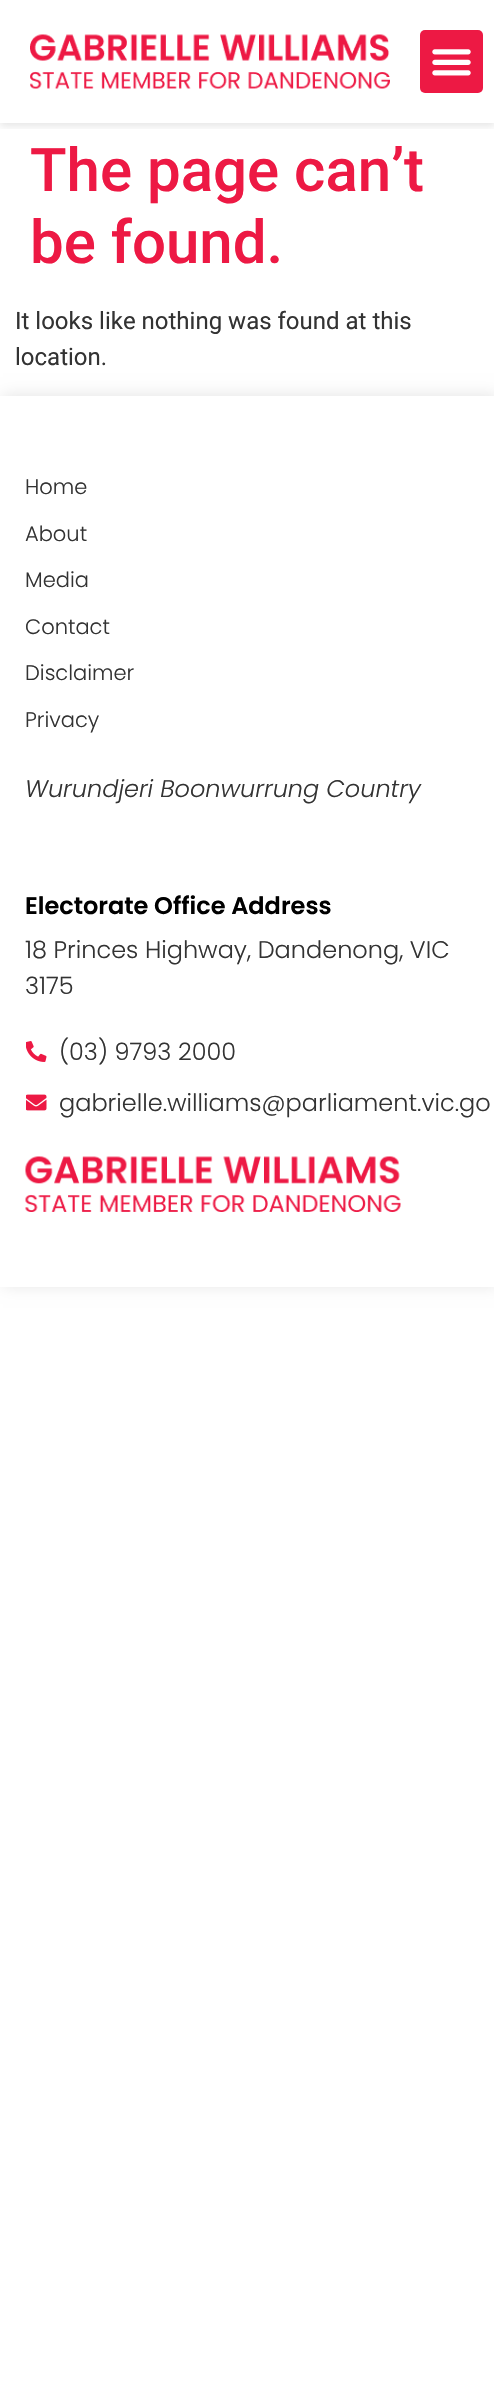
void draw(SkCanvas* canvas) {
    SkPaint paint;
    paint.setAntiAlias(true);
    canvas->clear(0xFFFFFFFF);
    canvas->save();
    canvas->clipRect(SkRect::MakeXYWH(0, 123, 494, 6));
    paint.setColor(0x1A000000);
    paint.setMaskFilter(SkMaskFilter::MakeBlur(kNormal_SkBlurStyle, 4));
    canvas->drawRect(SkRect::MakeXYWH(0, 3, 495, 123), paint);
    paint.setMaskFilter(nullptr);
    canvas->restore();
    canvas->drawImageRect(SkImages::DeferredFromEncodedData(SkData::MakeFromFileName("img1.png")), SkRect::MakeXYWH(30, 34, 360, 55), SkSamplingOptions());
    paint.setColor(0xFFED1944);
    canvas->drawRoundRect(SkRect::MakeXYWH(420, 30, 63, 63), 5, 5, paint);
    canvas->drawImageRect(SkImages::DeferredFromEncodedData(SkData::MakeFromFileName("img2.png")), SkRect::MakeXYWH(432, 49, 39, 27), SkSamplingOptions());
    SkFont font1(fontMgr->matchFamilyStyle("Roboto", SkFontStyle(500, SkFontStyle::kNormal_Width, SkFontStyle::kUpright_Slant)), 60);
    font1.setSubpixel(true);
    canvas->drawString("The page can’t", 30, 191, font1, paint);
    canvas->drawString("be found.", 30, 263, font1, paint);
    SkFont font2(fontMgr->matchFamilyStyle("Roboto", SkFontStyle::Normal()), 24);
    font2.setSubpixel(true);
    paint.setColor(0xFF333333);
    canvas->drawString("It looks like nothing was found at this", 15, 329, font2, paint);
    canvas->drawString("location.", 15, 365, font2, paint);
    paint.setColor(0x1A000000);
    paint.setMaskFilter(SkMaskFilter::MakeBlur(kNormal_SkBlurStyle, 7.5f));
    canvas->drawRect(SkRect::MakeXYWH(3, 395, 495, 891), paint);
    paint.setMaskFilter(nullptr);
    paint.setColor(0xFFFFFFFF);
    canvas->drawRect(SkRect::MakeXYWH(0, 396, 494, 891), paint);
    SkFont font3(fontMgr->matchFamilyStyle("Poppins", SkFontStyle(300, SkFontStyle::kNormal_Width, SkFontStyle::kUpright_Slant)), 21);
    font3.setSubpixel(true);
    paint.setColor(0xFF333333);
    canvas->drawString("Home", 25, 494, font3, paint);
    canvas->drawString("About", 25, 541, font3, paint);
    canvas->drawString("Media", 25, 587, font3, paint);
    canvas->drawString("Contact", 25, 634, font3, paint);
    canvas->drawString("Disclaimer", 25, 680, font3, paint);
    canvas->drawString("Privacy", 25, 727, font3, paint);
    SkFont font4(fontMgr->matchFamilyStyle("Poppins", SkFontStyle(300, SkFontStyle::kNormal_Width, SkFontStyle::kItalic_Slant)), 24);
    font4.setSubpixel(true);
    canvas->drawString("Wurundjeri Boonwurrung Country", 25, 797, font4, paint);
    SkFont font5(fontMgr->matchFamilyStyle("Poppins", SkFontStyle(600, SkFontStyle::kNormal_Width, SkFontStyle::kUpright_Slant)), 24);
    font5.setSubpixel(true);
    paint.setColor(0xFF000000);
    canvas->drawString("Electorate Office Address", 25, 914, font5, paint);
    SkFont font6(fontMgr->matchFamilyStyle("Poppins", SkFontStyle(300, SkFontStyle::kNormal_Width, SkFontStyle::kUpright_Slant)), 24);
    font6.setSubpixel(true);
    paint.setColor(0xFF333333);
    canvas->drawString("18 Princes Highway, Dandenong, VIC", 25, 958, font6, paint);
    canvas->drawString("3175", 25, 994, font6, paint);
    canvas->drawImageRect(SkImages::DeferredFromEncodedData(SkData::MakeFromFileName("img3.png")), SkRect::MakeXYWH(26, 1041, 21, 21), SkSamplingOptions());
    canvas->drawString("(03) 9793 2000", 59, 1060, font6, paint);
    canvas->drawImageRect(SkImages::DeferredFromEncodedData(SkData::MakeFromFileName("img4.png")), SkRect::MakeXYWH(26, 1094, 21, 17), SkSamplingOptions());
    canvas->drawString("gabrielle.williams@parliament.vic.go", 59, 1111, font6, paint);
    canvas->drawImageRect(SkImages::DeferredFromEncodedData(SkData::MakeFromFileName("img5.png")), SkRect::MakeXYWH(25, 1156, 376, 56), SkSamplingOptions());
}
